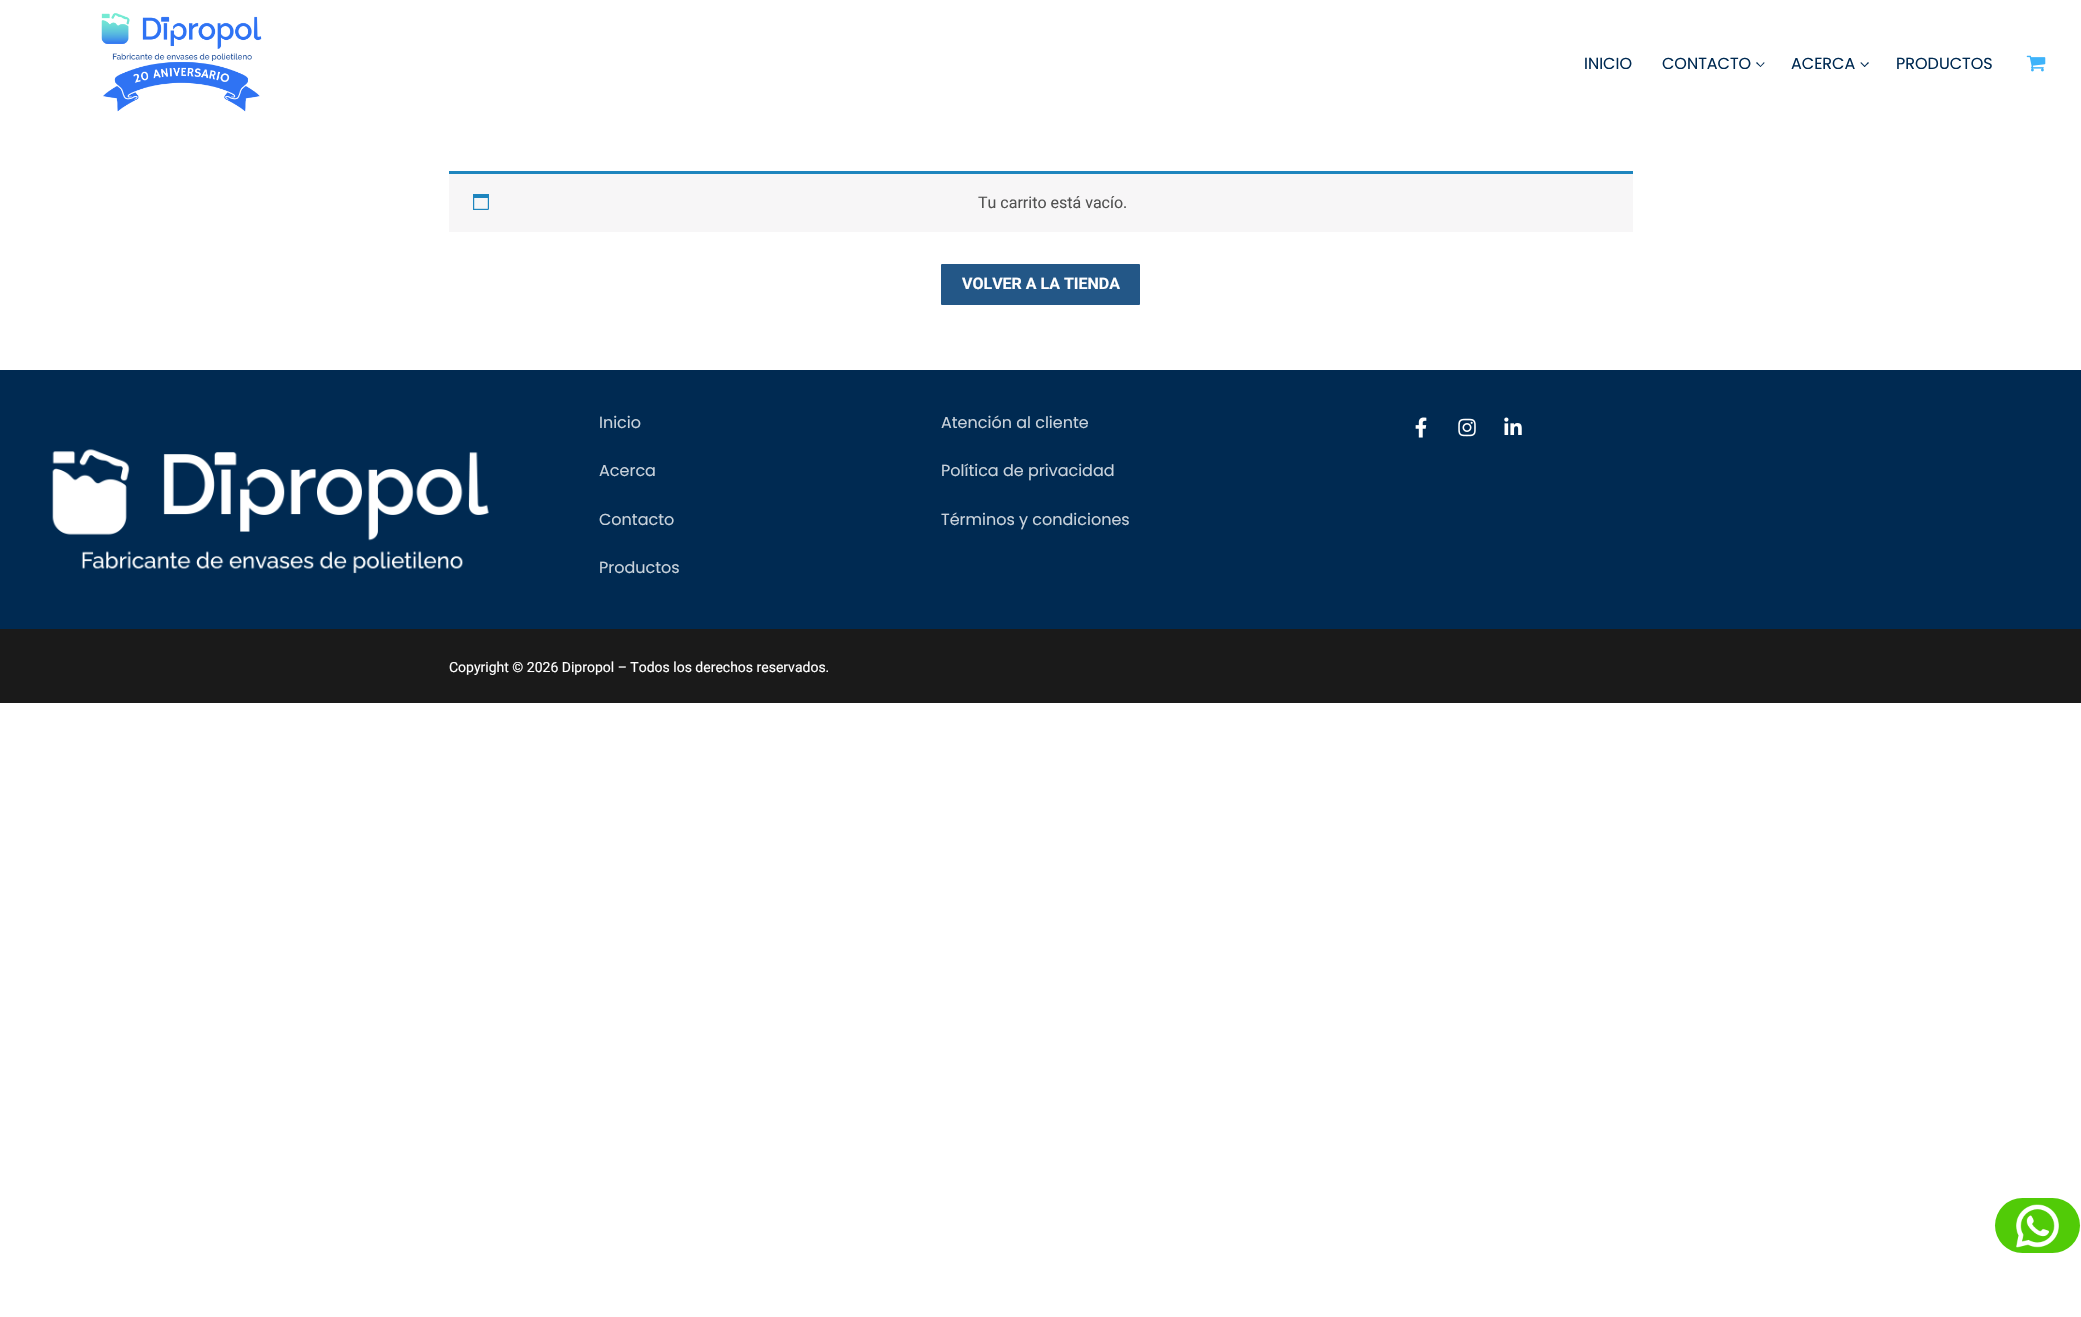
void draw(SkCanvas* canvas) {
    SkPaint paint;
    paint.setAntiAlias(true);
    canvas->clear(0xFFFFFFFF);
    canvas->drawImageRect(SkImages::DeferredFromEncodedData(SkData::MakeFromFileName("img1.png")), SkRect::MakeXYWH(101, 13, 161, 99), SkSamplingOptions());
    SkFont font1(fontMgr->matchFamilyStyle("Poppins", SkFontStyle::Normal()), 16);
    font1.setSubpixel(true);
    paint.setColor(0xFF002A52);
    canvas->drawString("INICIO", 1584, 69, font1, paint);
    canvas->drawString("CONTACTO", 1662, 69, font1, paint);
    canvas->drawPath(SkPathBuilder().moveTo(1760.5f, 67).lineTo(1756, 63).lineTo(1757, 62).lineTo(1761, 66.5f).close().detach(), paint);
    canvas->drawPath(SkPathBuilder().moveTo(1760.5f, 67).lineTo(1760, 66.5f).lineTo(1764, 62).lineTo(1764.5f, 63).close().detach(), paint);
    canvas->drawString("ACERCA", 1791, 69, font1, paint);
    canvas->drawPath(SkPathBuilder().moveTo(1864.5f, 67).lineTo(1860.5f, 63).lineTo(1861, 62).lineTo(1865.5f, 66.5f).close().detach(), paint);
    canvas->drawPath(SkPathBuilder().moveTo(1864.5f, 67).lineTo(1864, 66.5f).lineTo(1868, 62).lineTo(1869, 63).close().detach(), paint);
    canvas->drawString("PRODUCTOS", 1896, 69, font1, paint);
    canvas->drawImageRect(SkImages::DeferredFromEncodedData(SkData::MakeFromFileName("img2.png")), SkRect::MakeXYWH(2026, 55, 20, 17), SkSamplingOptions());
    paint.setColor(0xFFF7F6F7);
    canvas->drawRect(SkRect::MakeXYWH(449, 174, 1184, 58), paint);
    paint.setColor(0xFF1E85BE);
    canvas->drawRect(SkRect::MakeXYWH(449, 171, 1184, 3), paint);
    canvas->drawImageRect(SkImages::DeferredFromEncodedData(SkData::MakeFromFileName("img3.png")), SkRect::MakeXYWH(473, 194, 16, 16), SkSamplingOptions());
    SkFont font2(fontMgr->matchFamilyStyle("Roboto", SkFontStyle::Normal()), 16);
    font2.setSubpixel(true);
    paint.setColor(0xFF515151);
    canvas->drawString("Tu carrito está vacío.", 978, 208, font2, paint);
    paint.setColor(0xFF235787);
    canvas->drawRoundRect(SkRect::MakeXYWH(941, 264, 199, 41), 1, 1, paint);
    SkFont font3(fontMgr->matchFamilyStyle("Roboto", SkFontStyle::Bold()), 16);
    font3.setSubpixel(true);
    paint.setColor(0xFFFFFFFF);
    canvas->drawString("VOLVER A LA TIENDA", 962, 289, font3, paint);
    paint.setColor(0xFF002A52);
    canvas->drawRect(SkRect::MakeXYWH(0, 370, 2081, 259), paint);
    paint.setColor(0xFFC9D2DB);
    canvas->drawString("Inicio", 599, 428, font1, paint);
    canvas->drawString("Acerca", 599, 476, font1, paint);
    canvas->drawString("Contacto", 599, 525, font1, paint);
    canvas->drawString("Productos", 599, 573, font1, paint);
    canvas->drawString("Atención al cliente", 941, 428, font1, paint);
    canvas->drawString("Política de privacidad", 941, 476, font1, paint);
    canvas->drawString("Términos y condiciones", 941, 525, font1, paint);
    canvas->drawImageRect(SkImages::DeferredFromEncodedData(SkData::MakeFromFileName("img4.png")), SkRect::MakeXYWH(1415, 417, 12, 21), SkSamplingOptions());
    canvas->drawImageRect(SkImages::DeferredFromEncodedData(SkData::MakeFromFileName("img5.png")), SkRect::MakeXYWH(1458, 418, 18, 19), SkSamplingOptions());
    canvas->drawImageRect(SkImages::DeferredFromEncodedData(SkData::MakeFromFileName("img6.png")), SkRect::MakeXYWH(1504, 417, 18, 18), SkSamplingOptions());
    canvas->drawImageRect(SkImages::DeferredFromEncodedData(SkData::MakeFromFileName("img7.png")), SkRect::MakeXYWH(52, 449, 437, 125), SkSamplingOptions());
    paint.setColor(0xFF51CB07);
    canvas->drawRoundRect(SkRect::MakeXYWH(1995, 1198, 85, 55), 27.5f, 27.5f, paint);
    canvas->drawImageRect(SkImages::DeferredFromEncodedData(SkData::MakeFromFileName("img8.png")), SkRect::MakeXYWH(2016, 1204, 43, 44), SkSamplingOptions());
    paint.setColor(0xFF1A1A1A);
    canvas->drawRect(SkRect::MakeXYWH(0, 629, 2081, 74), paint);
    SkFont font4(fontMgr->matchFamilyStyle("Roboto", SkFontStyle::Normal()), 14);
    font4.setSubpixel(true);
    paint.setColor(0xFFFFFFFF);
    canvas->drawString("Copyright © 2026 Dipropol – Todos los derechos reservados.", 449, 672, font4, paint);
}
